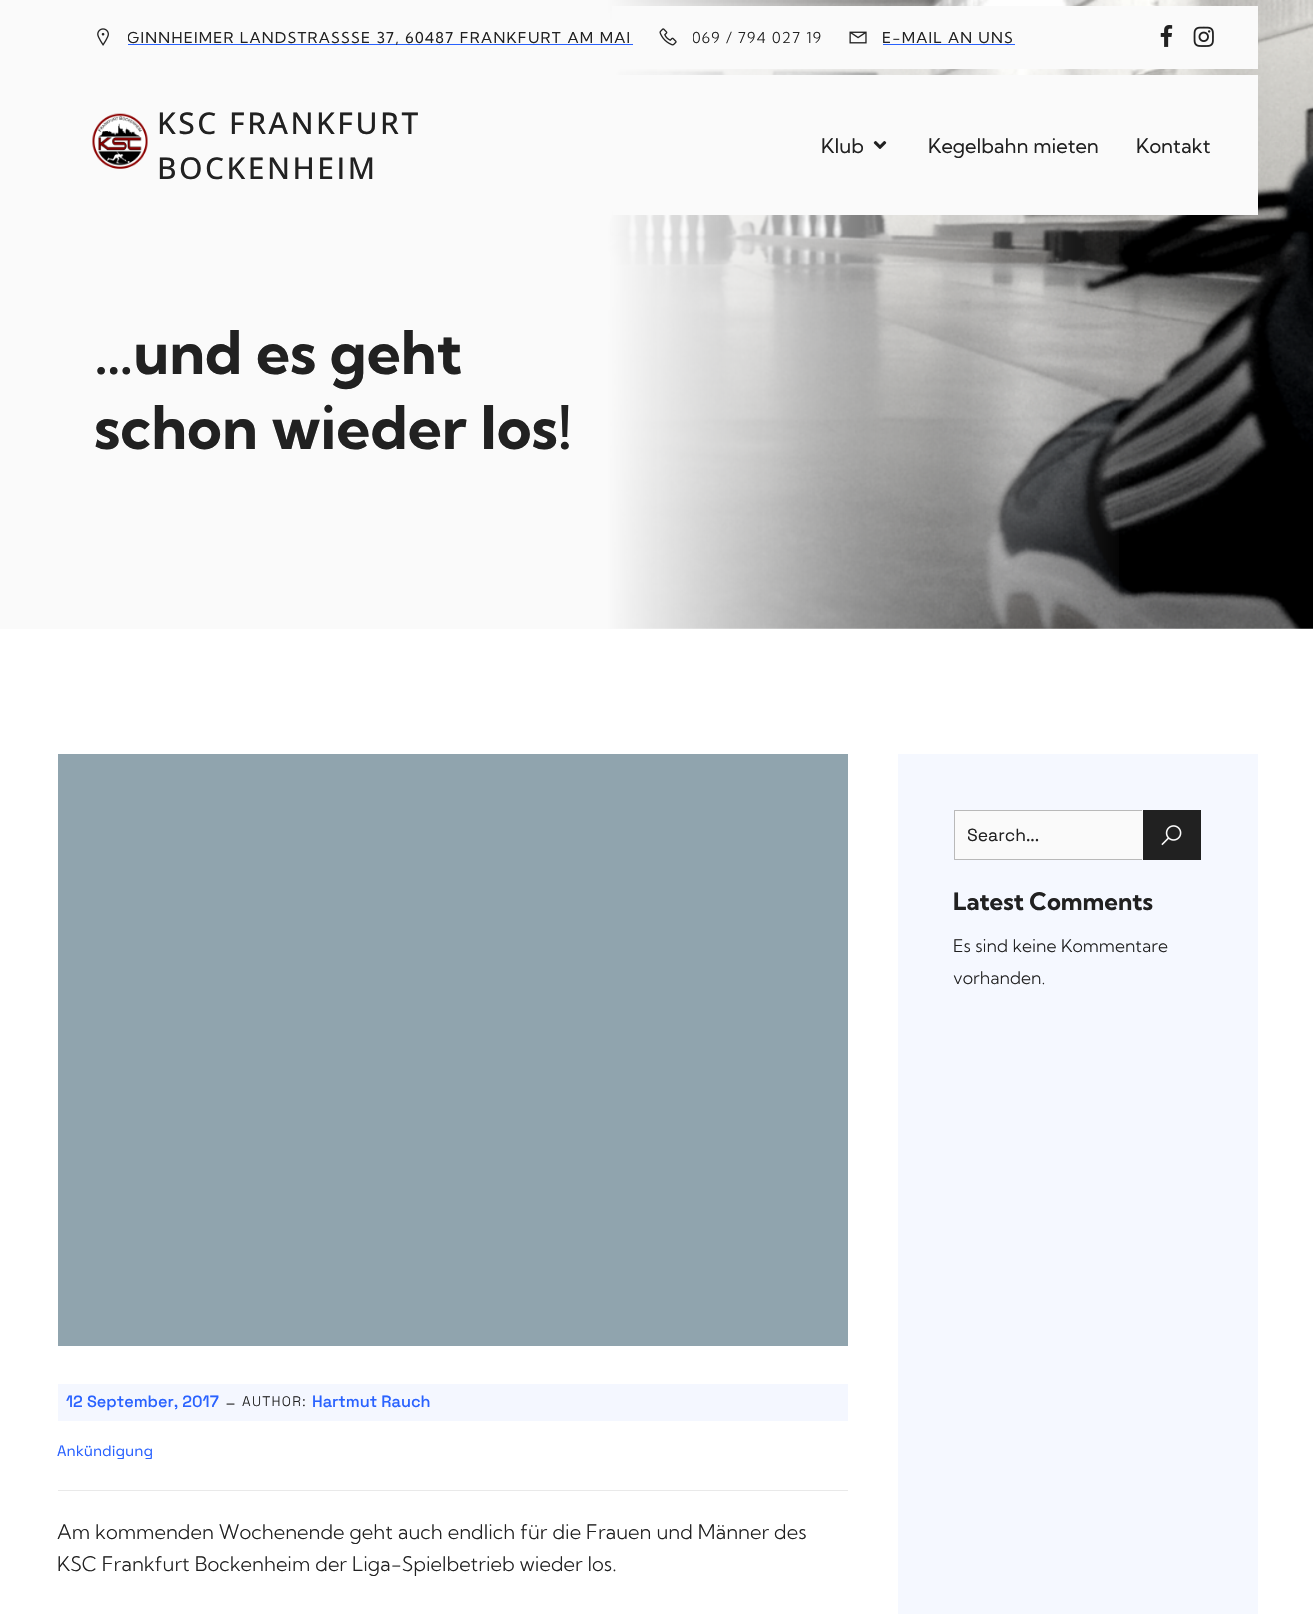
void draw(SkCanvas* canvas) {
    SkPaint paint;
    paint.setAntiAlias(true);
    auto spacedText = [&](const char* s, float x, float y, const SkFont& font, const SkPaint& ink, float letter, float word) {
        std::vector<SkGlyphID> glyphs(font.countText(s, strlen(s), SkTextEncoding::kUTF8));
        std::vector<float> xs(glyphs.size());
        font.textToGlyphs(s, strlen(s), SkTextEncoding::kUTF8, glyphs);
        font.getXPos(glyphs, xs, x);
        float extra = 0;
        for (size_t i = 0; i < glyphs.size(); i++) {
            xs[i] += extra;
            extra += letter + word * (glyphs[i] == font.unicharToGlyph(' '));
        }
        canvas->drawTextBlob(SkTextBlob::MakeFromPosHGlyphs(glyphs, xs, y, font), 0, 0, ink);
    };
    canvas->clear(0xFFFFFFFF);
    canvas->drawImageRect(SkImages::DeferredFromEncodedData(SkData::MakeFromFileName("img8.png")), SkRect::MakeXYWH(608, 0, 705, 629), SkSamplingOptions());
    {
        const SkColor colors[] = {0xFFFAFAFA, 0x00FAFAFA};
        const float stops[] = {0.46f, 0.86f};
        const SkPoint ends[] = {{0, 314}, {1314, 314}};
        paint.setShader(SkGradientShader::MakeLinear(ends, colors, stops, 2, SkTileMode::kClamp));
        paint.setAlpha(255);
    }
    canvas->drawRect(SkRect::MakeXYWH(0, 0, 1119, 629), paint);
    paint.setShader(nullptr);
    paint.setColor(0xFFFAFAFA);
    canvas->drawRect(SkRect::MakeXYWH(612, 6, 646, 63), paint);
    canvas->drawImageRect(SkImages::DeferredFromEncodedData(SkData::MakeFromFileName("img1.png")), SkRect::MakeXYWH(97, 28, 12, 18), SkSamplingOptions());
    canvas->save();
    canvas->clipRect(SkRect::MakeXYWH(128, 28, 505, 20));
    SkFont font1(fontMgr->matchFamilyStyle("Kumbh Sans", SkFontStyle::Normal()), 15);
    font1.setSubpixel(true);
    paint.setColor(0xFF212121);
    spacedText("GINNHEIMER LANDSTRA", 127, 43, font1, paint, 1.25f, 0);
    canvas->restore();
    spacedText("SS", 331, 43, font1, paint, 1.25f, 0);
    paint.setColor(0xFF2962FF);
    canvas->drawRect(SkRect::MakeXYWH(128, 44, 505, 1), paint);
    paint.setColor(0xFF212121);
    spacedText("SE 37, 60487 FRANKFURT AM MAI", 351, 43, font1, paint, 1.25f, 0.5f);
    canvas->drawImageRect(SkImages::DeferredFromEncodedData(SkData::MakeFromFileName("img2.png")), SkRect::MakeXYWH(659, 28, 18, 18), SkSamplingOptions());
    canvas->save();
    canvas->clipRect(SkRect::MakeXYWH(693, 28, 130, 20));
    SkFont font2(fontMgr->matchFamilyStyle("Kumbh Sans", SkFontStyle(300, SkFontStyle::kNormal_Width, SkFontStyle::kUpright_Slant)), 15);
    font2.setSubpixel(true);
    spacedText("069 / 794 027 19", 692, 43, font2, paint, 1.25f, 0);
    canvas->restore();
    canvas->drawImageRect(SkImages::DeferredFromEncodedData(SkData::MakeFromFileName("img3.png")), SkRect::MakeXYWH(849, 31, 18, 13), SkSamplingOptions());
    spacedText("E-MAIL AN UNS", 882, 43, font1, paint, 1.25f, 0);
    paint.setColor(0xFF2962FF);
    canvas->drawRect(SkRect::MakeXYWH(883, 44, 132, 1), paint);
    canvas->drawImageRect(SkImages::DeferredFromEncodedData(SkData::MakeFromFileName("img4.png")), SkRect::MakeXYWH(1160, 25, 13, 22), SkSamplingOptions());
    canvas->drawImageRect(SkImages::DeferredFromEncodedData(SkData::MakeFromFileName("img5.png")), SkRect::MakeXYWH(1193, 26, 21, 21), SkSamplingOptions());
    paint.setColor(0xFFFAFAFA);
    canvas->drawRect(SkRect::MakeXYWH(613, 75, 645, 140), paint);
    canvas->drawImageRect(SkImages::DeferredFromEncodedData(SkData::MakeFromFileName("img6.png")), SkRect::MakeXYWH(92, 113, 56, 56), SkSamplingOptions());
    SkFont font3(fontMgr->matchFamilyStyle("Open Sans", SkFontStyle(500, SkFontStyle::kNormal_Width, SkFontStyle::kUpright_Slant)), 30);
    font3.setSubpixel(true);
    paint.setColor(0xFF212121);
    spacedText("KSC FRANKFURT", 157, 134, font3, paint, 2.5f, 0);
    spacedText("BOCKENHEIM", 157, 179, font3, paint, 2.5f, 0);
    SkFont font4(fontMgr->matchFamilyStyle("Kumbh Sans", SkFontStyle::Normal()), 20);
    font4.setSubpixel(true);
    canvas->drawString("Klub", 821, 153, font4, paint);
    canvas->drawImageRect(SkImages::DeferredFromEncodedData(SkData::MakeFromFileName("img7.png")), SkRect::MakeXYWH(873, 141, 14, 8), SkSamplingOptions());
    canvas->drawString("Kegelbahn mieten", 928, 153, font4, paint);
    canvas->drawString("Kontakt", 1136, 153, font4, paint);
    SkFont font5(fontMgr->matchFamilyStyle("Kumbh Sans", SkFontStyle::Bold()), 60);
    font5.setSubpixel(true);
    canvas->drawString("…und es geht", 94, 374, font5, paint);
    canvas->drawString("schon wieder los!", 94, 449, font5, paint);
    paint.setColor(0xFFF5F8FF);
    canvas->drawRect(SkRect::MakeXYWH(898, 754, 360, 860), paint);
    paint.setColor(0xFFFAFAFA);
    canvas->drawRect(SkRect::MakeXYWH(954, 810, 189, 50), paint);
    paint.setColor(0xFFB9B9B9);
    canvas->drawPath(SkPathBuilder().moveTo(954, 810).lineTo(1142, 810).lineTo(1142, 811).lineTo(955, 811).close().detach(), paint);
    canvas->drawPath(SkPathBuilder().moveTo(1142, 860).lineTo(954, 860).lineTo(955, 859).lineTo(1142, 859).close().detach(), paint);
    paint.setColor(0x4D212121);
    canvas->drawPath(SkPathBuilder().moveTo(954, 860).lineTo(954, 810).lineTo(955, 811).lineTo(955, 859).close().detach(), paint);
    canvas->save();
    canvas->clipRect(SkRect::MakeXYWH(968, 824, 162, 22));
    SkFont font6(fontMgr->matchFamilyStyle("Space Grotesk", SkFontStyle::Normal()), 17.5f);
    font6.setSubpixel(true);
    paint.setColor(0xFF212121);
    canvas->drawString("Search...", 967, 841, font6, paint);
    canvas->restore();
    canvas->drawRect(SkRect::MakeXYWH(1143, 810, 58, 50), paint);
    canvas->drawImageRect(SkImages::DeferredFromEncodedData(SkData::MakeFromFileName("img9.png")), SkRect::MakeXYWH(1161, 825, 21, 21), SkSamplingOptions());
    SkFont font7(fontMgr->matchFamilyStyle("Kumbh Sans", SkFontStyle::Bold()), 24);
    font7.setSubpixel(true);
    canvas->drawString("Latest Comments", 953, 910, font7, paint);
    SkFont font8(fontMgr->matchFamilyStyle("Kumbh Sans", SkFontStyle(300, SkFontStyle::kNormal_Width, SkFontStyle::kUpright_Slant)), 17.5f);
    font8.setSubpixel(true);
    canvas->drawString("Es sind keine Kommentare", 953, 952, font8, paint);
    canvas->drawString("vorhanden.", 953, 984, font8, paint);
    paint.setColor(0xFF90A4AE);
    canvas->drawRect(SkRect::MakeXYWH(58, 754, 790, 592), paint);
    paint.setColor(0xFFF4F7FF);
    canvas->drawRect(SkRect::MakeXYWH(58, 1384, 790, 37), paint);
    SkFont font9(fontMgr->matchFamilyStyle("Space Grotesk", SkFontStyle(500, SkFontStyle::kNormal_Width, SkFontStyle::kUpright_Slant)), 16.25f);
    font9.setSubpixel(true);
    paint.setColor(0xFF2962FF);
    canvas->drawString("12 September, 2017", 66, 1407, font9, paint);
    SkFont font10(fontMgr->matchFamilyStyle("Kumbh Sans", SkFontStyle(300, SkFontStyle::kNormal_Width, SkFontStyle::kUpright_Slant)), 20);
    font10.setSubpixel(true);
    paint.setColor(0xFF212121);
    canvas->drawString("-", 225, 1409, font10, paint);
    SkFont font11(fontMgr->matchFamilyStyle("Space Grotesk", SkFontStyle(300, SkFontStyle::kNormal_Width, SkFontStyle::kUpright_Slant)), 13.75f);
    font11.setSubpixel(true);
    spacedText("AUTHOR:", 242, 1406, font11, paint, 1.25f, 0);
    paint.setColor(0xFF2962FF);
    canvas->drawString("Hartmut Rauch", 312, 1407, font9, paint);
    SkFont font12(fontMgr->matchFamilyStyle("Space Grotesk", SkFontStyle::Normal()), 15);
    font12.setSubpixel(true);
    canvas->drawString("Ankündigung", 57, 1456, font12, paint);
    paint.setColor(0xFFE9E9E9);
    canvas->drawRect(SkRect::MakeXYWH(58, 1490, 790, 1), paint);
    paint.setColor(0xFF212121);
    canvas->drawString("Am kommenden Wochenende geht auch endlich für die Frauen und Männer des", 57, 1539, font10, paint);
    canvas->drawString("KSC Frankfurt Bockenheim der Liga-Spielbetrieb wieder los.", 57, 1571, font10, paint);
}
